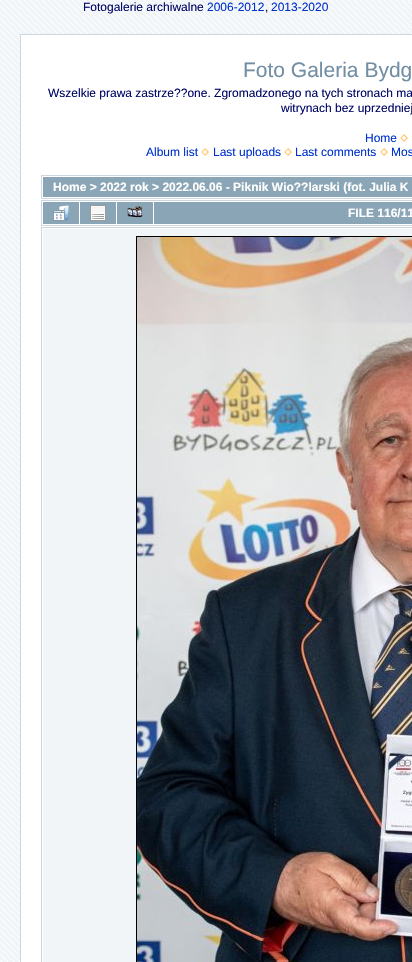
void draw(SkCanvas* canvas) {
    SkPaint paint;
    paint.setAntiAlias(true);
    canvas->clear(0xFFF2F5F7);
    canvas->drawImageRect(SkImages::DeferredFromEncodedData(SkData::MakeFromFileName("img1.png")), SkRect::MakeXYWH(0, 0, 412, 962), SkSamplingOptions());
    SkFont font1(fontMgr->matchFamilyStyle("Liberation Sans", SkFontStyle::Normal()), 12);
    font1.setSubpixel(true);
    paint.setColor(0xFF000666);
    canvas->drawString("Fotogalerie archiwalne", 83, 11, font1, paint);
    paint.setColor(0xFF0033CC);
    canvas->drawString("2006-2012", 207, 11, font1, paint);
    paint.setColor(0xFF000666);
    canvas->drawString(",", 265, 11, font1, paint);
    paint.setColor(0xFF0033CC);
    canvas->drawString("2013-2020", 271, 11, font1, paint);
    paint.setColor(0xFFFFFFFF);
    canvas->drawRect(SkRect::MakeXYWH(20.5f, 34.5f, 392, 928), paint);
    paint.setStyle(SkPaint::kStroke_Style);
    paint.setStrokeWidth(1);
    paint.setColor(0xFFCCD7E0);
    canvas->drawRect(SkRect::MakeXYWH(20.5f, 34.5f, 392, 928), paint);
    SkFont font2(fontMgr->matchFamilyStyle("Liberation Sans", SkFontStyle::Normal()), 21);
    font2.setSubpixel(true);
    paint.setStyle(SkPaint::kFill_Style);
    paint.setColor(0xFF718EA5);
    canvas->drawString("Foto Galeria Bydg", 243, 77, font2, paint);
    paint.setColor(0xFF000666);
    canvas->drawString("Wszelkie prawa zastrze?\077one. Zgromadzonego na tych stronach ma", 48, 97, font1, paint);
    canvas->drawString("witrynach bez uprzedniej", 281, 112, font1, paint);
    paint.setColor(0xFF0033CC);
    canvas->drawString("Home", 365, 142, font1, paint);
    canvas->drawImageRect(SkImages::DeferredFromEncodedData(SkData::MakeFromFileName("img2.png")), SkRect::MakeXYWH(400, 134, 8, 8), SkSamplingOptions());
    canvas->drawString("Album list", 146, 156, font1, paint);
    canvas->drawImageRect(SkImages::DeferredFromEncodedData(SkData::MakeFromFileName("img2.png")), SkRect::MakeXYWH(201, 148, 8, 8), SkSamplingOptions());
    canvas->drawString("Last uploads", 213, 156, font1, paint);
    canvas->drawImageRect(SkImages::DeferredFromEncodedData(SkData::MakeFromFileName("img2.png")), SkRect::MakeXYWH(284, 148, 8, 8), SkSamplingOptions());
    canvas->drawString("Last comments", 295, 156, font1, paint);
    canvas->drawImageRect(SkImages::DeferredFromEncodedData(SkData::MakeFromFileName("img2.png")), SkRect::MakeXYWH(380, 148, 8, 8), SkSamplingOptions());
    canvas->drawString("Mos", 391, 156, font1, paint);
    paint.setStyle(SkPaint::kStroke_Style);
    paint.setColor(0xFFCCD7E0);
    canvas->drawRect(SkRect::MakeXYWH(41.5f, 175.5f, 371, 23), paint);
    paint.setStyle(SkPaint::kFill_Style);
    paint.setColor(0xFF8AA5B5);
    canvas->drawRect(SkRect::MakeXYWH(43, 177, 369, 20), paint);
    SkFont font3(fontMgr->matchFamilyStyle("Liberation Sans", SkFontStyle::Bold()), 12);
    font3.setSubpixel(true);
    paint.setColor(0xFFFFFFFF);
    canvas->drawString("Home > 2022 rok > 2022.06.06 - Piknik Wio?\077larski (fot. Julia K", 53, 191, font3, paint);
    paint.setStyle(SkPaint::kStroke_Style);
    paint.setColor(0xFFCCD7E0);
    canvas->drawRect(SkRect::MakeXYWH(41.5f, 200.5f, 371, 25), paint);
    paint.setStyle(SkPaint::kFill_Style);
    paint.setColor(0xFF8AA5B5);
    canvas->drawRect(SkRect::MakeXYWH(43, 202, 36, 22), paint);
    canvas->drawImageRect(SkImages::DeferredFromEncodedData(SkData::MakeFromFileName("img3.png")), SkRect::MakeXYWH(53, 205, 16, 16), SkSamplingOptions());
    canvas->drawRect(SkRect::MakeXYWH(80, 202, 36, 22), paint);
    canvas->drawImageRect(SkImages::DeferredFromEncodedData(SkData::MakeFromFileName("img4.png")), SkRect::MakeXYWH(90, 205, 16, 16), SkSamplingOptions());
    canvas->drawRect(SkRect::MakeXYWH(117, 202, 36, 22), paint);
    canvas->drawImageRect(SkImages::DeferredFromEncodedData(SkData::MakeFromFileName("img5.png")), SkRect::MakeXYWH(127, 206, 16, 12), SkSamplingOptions());
    canvas->drawRect(SkRect::MakeXYWH(154, 202, 258, 22), paint);
    paint.setColor(0xFFFFFFFF);
    canvas->drawString("FILE 116/11", 348, 217, font3, paint);
    paint.setStyle(SkPaint::kStroke_Style);
    paint.setColor(0xFFCCD7E0);
    canvas->drawRect(SkRect::MakeXYWH(41.5f, 227.5f, 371, 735), paint);
    paint.setStyle(SkPaint::kFill_Style);
    paint.setColor(0xFFF2F5F7);
    canvas->drawRect(SkRect::MakeXYWH(43, 229, 369, 733), paint);
    paint.setStyle(SkPaint::kStroke_Style);
    paint.setColor(0xFF000000);
    canvas->drawRect(SkRect::MakeXYWH(136.5f, 236.5f, 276, 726), paint);
    canvas->drawImageRect(SkImages::DeferredFromEncodedData(SkData::MakeFromFileName("img6.png")), SkRect::MakeXYWH(137, 237, 275, 725), SkSamplingOptions());
}
